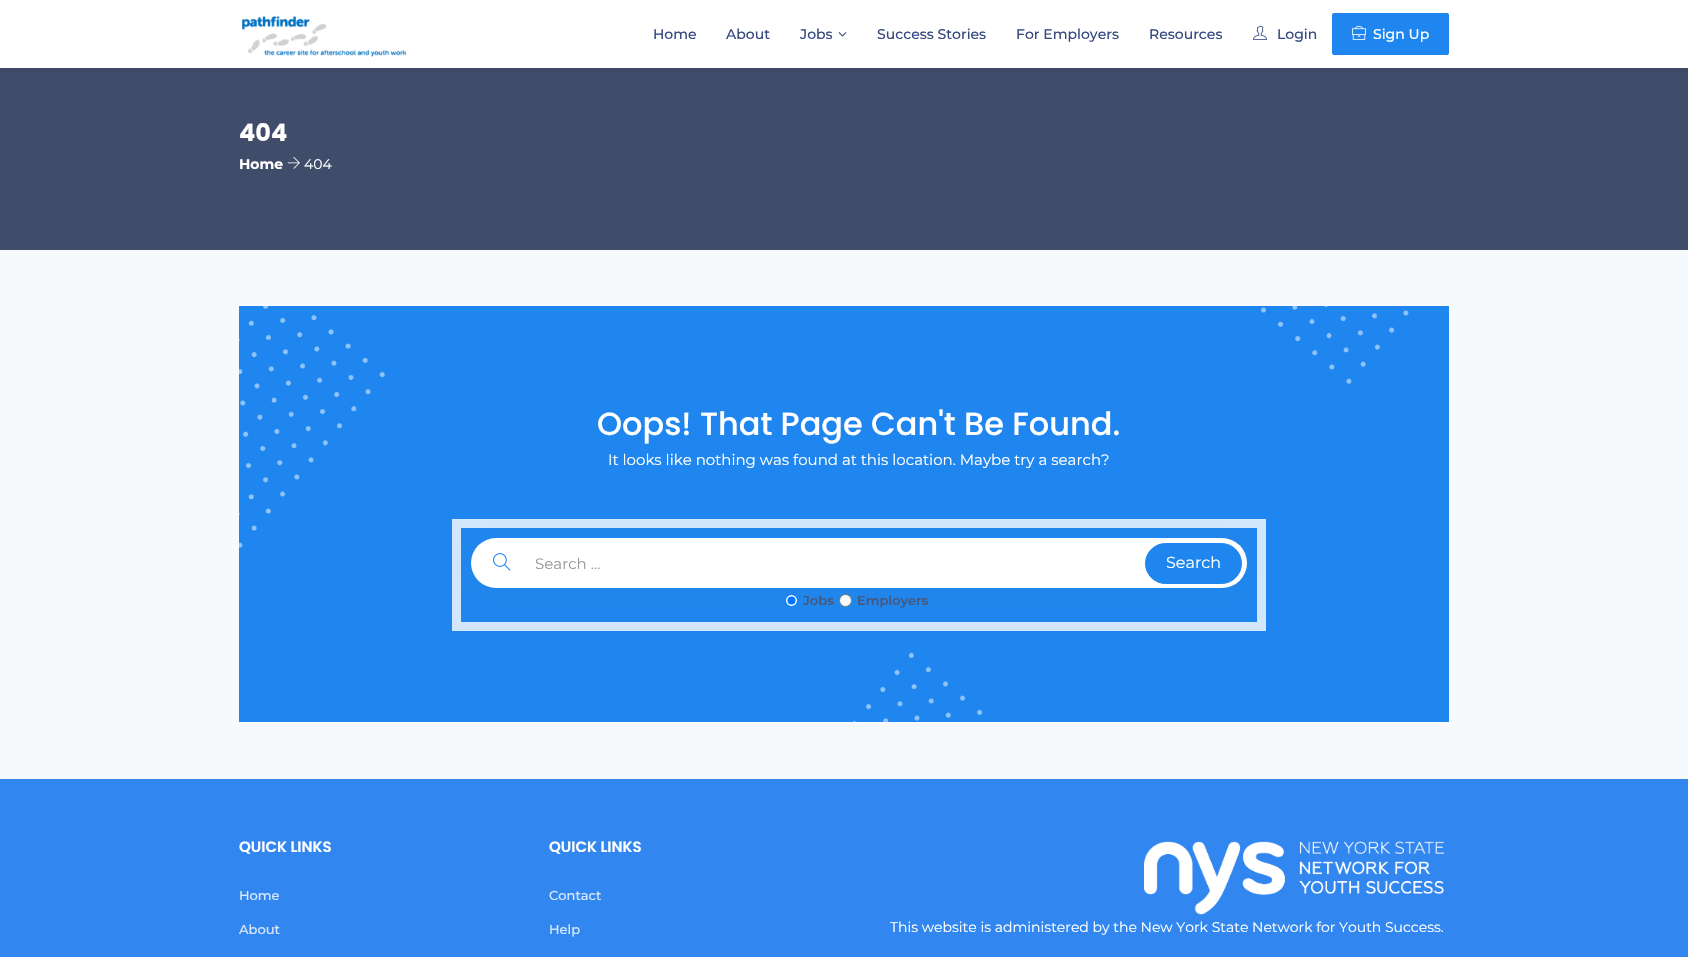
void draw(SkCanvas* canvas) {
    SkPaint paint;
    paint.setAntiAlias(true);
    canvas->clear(0xFFF6FAFD);
    paint.setColor(0xFF3F4C6A);
    canvas->drawRect(SkRect::MakeXYWH(0, 68, 1688, 182), paint);
    paint.setColor(0x0D000000);
    paint.setMaskFilter(SkMaskFilter::MakeBlur(kNormal_SkBlurStyle, 3));
    canvas->drawRect(SkRect::MakeXYWH(0, 2, 1688, 68), paint);
    paint.setMaskFilter(nullptr);
    paint.setColor(0xFFFFFFFF);
    canvas->drawRect(SkRect::MakeXYWH(0, 0, 1688, 68), paint);
    canvas->drawImageRect(SkImages::DeferredFromEncodedData(SkData::MakeFromFileName("img1.png")), SkRect::MakeXYWH(242, 16, 165, 41), SkSamplingOptions());
    SkFont font1(fontMgr->matchFamilyStyle("Montserrat", SkFontStyle(500, SkFontStyle::kNormal_Width, SkFontStyle::kUpright_Slant)), 14);
    font1.setSubpixel(true);
    paint.setColor(0xFF35497F);
    canvas->drawString("Home", 653, 39, font1, paint);
    canvas->drawString("About", 726, 39, font1, paint);
    canvas->drawString("Jobs", 800, 39, font1, paint);
    canvas->drawImageRect(SkImages::DeferredFromEncodedData(SkData::MakeFromFileName("img2.png")), SkRect::MakeXYWH(838, 32, 9, 5), SkSamplingOptions());
    canvas->drawString("Success Stories", 877, 39, font1, paint);
    canvas->drawString("For Employers", 1016, 39, font1, paint);
    canvas->drawString("Resources", 1149, 39, font1, paint);
    canvas->drawImageRect(SkImages::DeferredFromEncodedData(SkData::MakeFromFileName("img3.png")), SkRect::MakeXYWH(1253, 25, 14, 15), SkSamplingOptions());
    canvas->drawString("Login", 1277, 39, font1, paint);
    paint.setColor(0xFF1F86EF);
    canvas->drawRoundRect(SkRect::MakeXYWH(1332, 13, 117, 42), 2, 2, paint);
    canvas->drawImageRect(SkImages::DeferredFromEncodedData(SkData::MakeFromFileName("img4.png")), SkRect::MakeXYWH(1352, 25, 14, 15), SkSamplingOptions());
    paint.setColor(0xFFFFFFFF);
    canvas->drawString("Sign Up", 1373, 39, font1, paint);
    SkFont font2(fontMgr->matchFamilyStyle("Poppins", SkFontStyle::Bold()), 24);
    font2.setSubpixel(true);
    canvas->drawString("404", 239, 141, font2, paint);
    SkFont font3(fontMgr->matchFamilyStyle("Montserrat", SkFontStyle::Bold()), 14);
    font3.setSubpixel(true);
    canvas->drawString("Home", 239, 169, font3, paint);
    canvas->drawImageRect(SkImages::DeferredFromEncodedData(SkData::MakeFromFileName("img5.png")), SkRect::MakeXYWH(287, 156, 13, 13), SkSamplingOptions());
    SkFont font4(fontMgr->matchFamilyStyle("Montserrat", SkFontStyle::Normal()), 14);
    font4.setSubpixel(true);
    canvas->drawString("404", 304, 169, font4, paint);
    paint.setColor(0xFF1F86EF);
    canvas->drawRect(SkRect::MakeXYWH(239, 306, 1210, 416), paint);
    canvas->drawImageRect(SkImages::DeferredFromEncodedData(SkData::MakeFromFileName("img6.png")), SkRect::MakeXYWH(239, 306, 1170, 416), SkSamplingOptions());
    SkFont font5(fontMgr->matchFamilyStyle("Poppins", SkFontStyle(500, SkFontStyle::kNormal_Width, SkFontStyle::kUpright_Slant)), 32);
    font5.setSubpixel(true);
    paint.setColor(0xFFFFFFFF);
    canvas->drawString("Oops! That Page Can't Be Found.", 597, 435, font5, paint);
    SkFont font6(fontMgr->matchFamilyStyle("Montserrat", SkFontStyle::Normal()), 15);
    font6.setSubpixel(true);
    canvas->drawString("It looks like nothing was found at this location. Maybe try a search?", 608, 465, font6, paint);
    paint.setStyle(SkPaint::kStroke_Style);
    paint.setStrokeWidth(9);
    paint.setColor(0xFFD2E7FC);
    canvas->drawRect(SkRect::MakeXYWH(456.5f, 523.5f, 805, 103), paint);
    paint.setStyle(SkPaint::kFill_Style);
    paint.setColor(0xFFFFFFFF);
    canvas->drawCircle(791.5f, 600.5f, 6, paint);
    paint.setStyle(SkPaint::kStroke_Style);
    paint.setStrokeWidth(1);
    paint.setColor(0xFF0075FF);
    canvas->drawCircle(791.5f, 600.5f, 6, paint);
    paint.setStyle(SkPaint::kFill_Style);
    canvas->drawCircle(791.5f, 600.5f, 4, paint);
    paint.setColor(0xFFFFFFFF);
    canvas->drawCircle(845.5f, 600.5f, 6, paint);
    paint.setStyle(SkPaint::kStroke_Style);
    paint.setColor(0xFF767676);
    canvas->drawCircle(845.5f, 600.5f, 6, paint);
    paint.setStyle(SkPaint::kFill_Style);
    paint.setColor(0x262980B9);
    paint.setMaskFilter(SkMaskFilter::MakeBlur(kNormal_SkBlurStyle, 12.5f));
    canvas->drawRoundRect(SkRect::MakeXYWH(471, 543, 776, 50), 25, 25, paint);
    paint.setMaskFilter(nullptr);
    paint.setColor(0xFFFFFFFF);
    canvas->drawRoundRect(SkRect::MakeXYWH(471, 538, 776, 50), 25, 25, paint);
    canvas->drawImageRect(SkImages::DeferredFromEncodedData(SkData::MakeFromFileName("img7.png")), SkRect::MakeXYWH(493, 553, 18, 18), SkSamplingOptions());
    paint.setColor(0xFF999999);
    canvas->drawString("Search …", 535, 569, font6, paint);
    paint.setColor(0xFF1F86EF);
    canvas->drawRoundRect(SkRect::MakeXYWH(1145.5f, 543.5f, 96, 40), 20, 20, paint);
    paint.setStyle(SkPaint::kStroke_Style);
    canvas->drawRoundRect(SkRect::MakeXYWH(1145.5f, 543.5f, 96, 40), 20, 20, paint);
    SkFont font7(fontMgr->matchFamilyStyle("Montserrat", SkFontStyle::Normal()), 16);
    font7.setSubpixel(true);
    paint.setStyle(SkPaint::kFill_Style);
    paint.setColor(0xFFFFFFFF);
    canvas->drawString("Search", 1166, 568, font7, paint);
    SkFont font8(fontMgr->matchFamilyStyle("Montserrat", SkFontStyle(600, SkFontStyle::kNormal_Width, SkFontStyle::kUpright_Slant)), 13);
    font8.setSubpixel(true);
    paint.setColor(0xFF495677);
    canvas->drawString("Jobs", 803, 605, font8, paint);
    canvas->drawString("Employers", 857, 605, font8, paint);
    paint.setColor(0xFF3286EF);
    canvas->drawRect(SkRect::MakeXYWH(0, 779, 1688, 178), paint);
    paint.setColor(0xFFF6F7F9);
    canvas->drawRect(SkRect::MakeXYWH(0, 778, 1688, 1), paint);
    SkFont font9(fontMgr->matchFamilyStyle("Poppins", SkFontStyle(600, SkFontStyle::kNormal_Width, SkFontStyle::kUpright_Slant)), 15);
    font9.setSubpixel(true);
    paint.setColor(0xFFFFFFFF);
    canvas->drawString("QUICK LINKS", 239, 852, font9, paint);
    SkFont font10(fontMgr->matchFamilyStyle("Montserrat", SkFontStyle(500, SkFontStyle::kNormal_Width, SkFontStyle::kUpright_Slant)), 13);
    font10.setSubpixel(true);
    paint.setColor(0xFFD6E7FC);
    canvas->drawString("Home", 239, 900, font10, paint);
    canvas->drawString("About", 239, 934, font10, paint);
    paint.setColor(0xFFFFFFFF);
    canvas->drawString("QUICK LINKS", 549, 852, font9, paint);
    paint.setColor(0xFFD6E7FC);
    canvas->drawString("Contact", 549, 900, font10, paint);
    canvas->drawString("Help", 549, 934, font10, paint);
    canvas->drawImageRect(SkImages::DeferredFromEncodedData(SkData::MakeFromFileName("img8.png")), SkRect::MakeXYWH(1144, 841, 300, 74), SkSamplingOptions());
    paint.setColor(0xFFFFFFFF);
    canvas->drawString("This website is administered by the New York State Network for Youth Success.", 890, 932, font4, paint);
}
